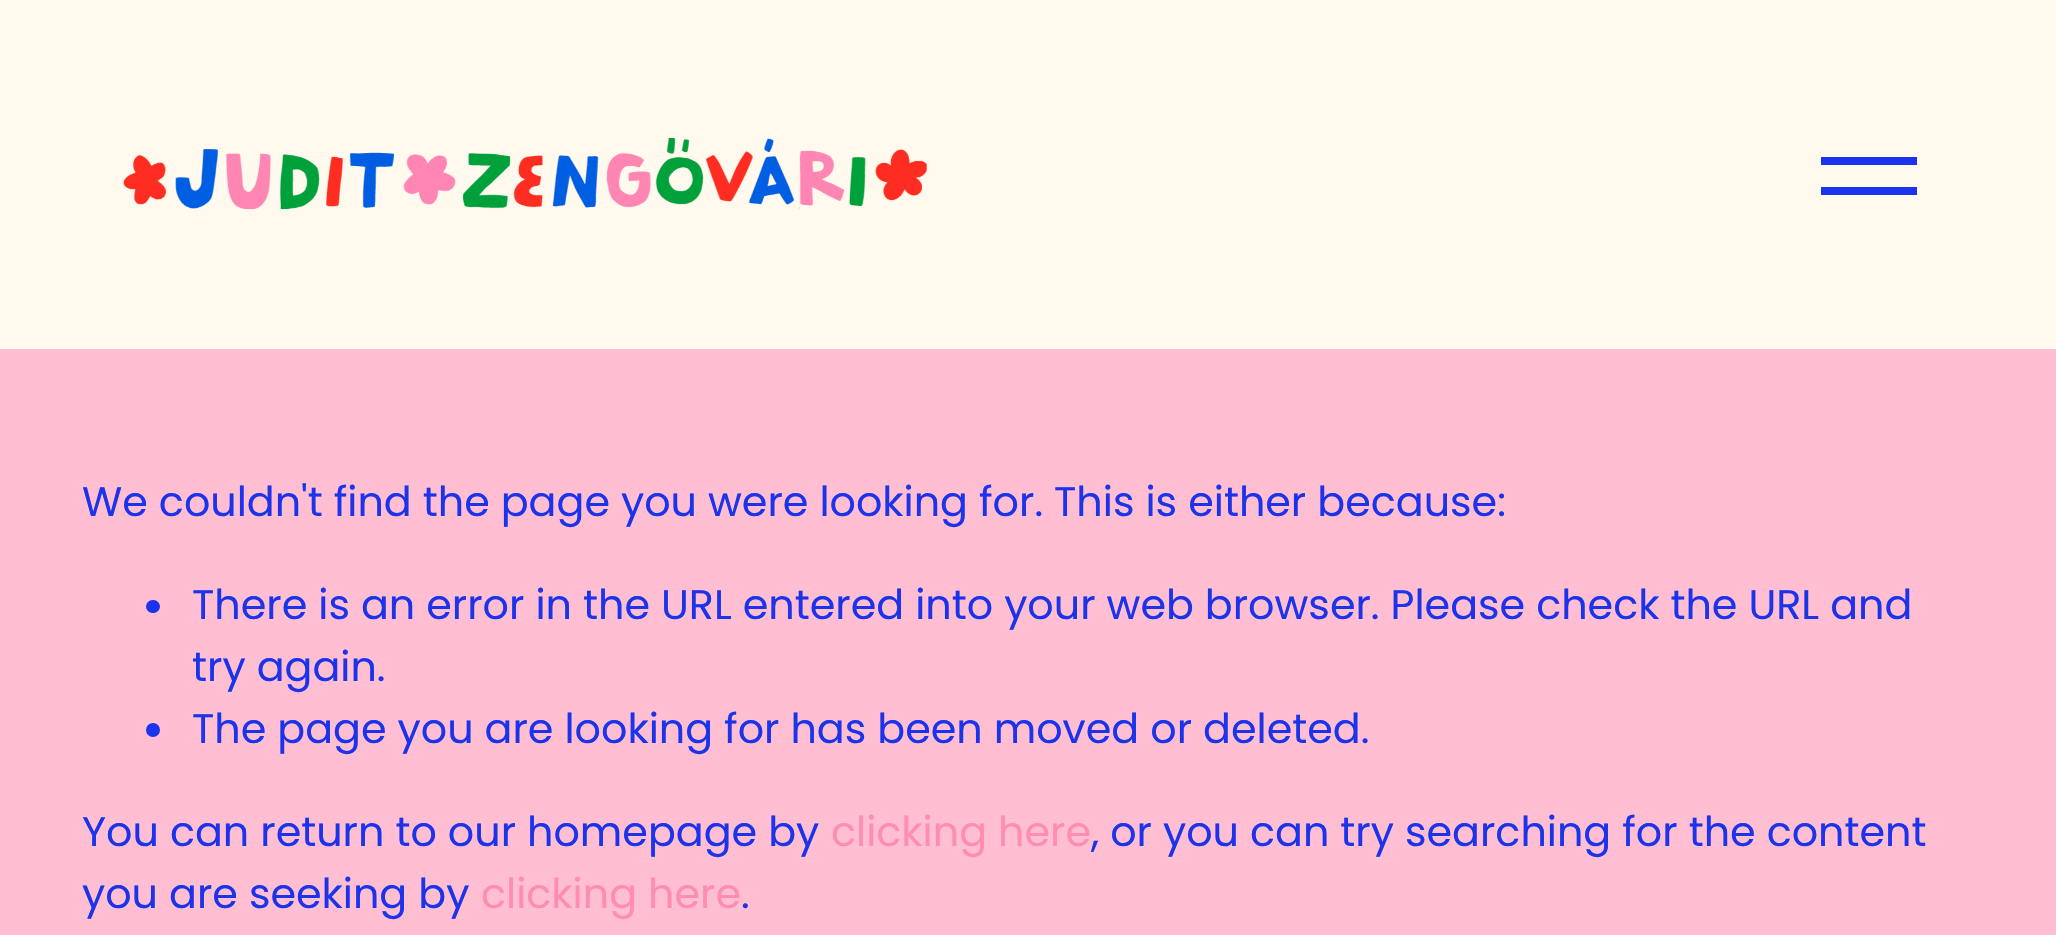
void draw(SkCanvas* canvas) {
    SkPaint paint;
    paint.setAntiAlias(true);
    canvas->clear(0xFFFFBED2);
    paint.setColor(0xFFFFFAED);
    canvas->drawRect(SkRect::MakeXYWH(0, 0, 2056, 349), paint);
    canvas->drawImageRect(SkImages::DeferredFromEncodedData(SkData::MakeFromFileName("img1.png")), SkRect::MakeXYWH(123, 138, 804, 72), SkSamplingOptions());
    paint.setColor(0xFF1A33EB);
    canvas->drawRect(SkRect::MakeXYWH(1821, 157, 96, 8), paint);
    canvas->drawRect(SkRect::MakeXYWH(1821, 187, 96, 8), paint);
    SkFont font1(fontMgr->matchFamilyStyle("Poppins", SkFontStyle::Normal()), 41.25f);
    font1.setSubpixel(true);
    canvas->drawString("We couldn't find the page you were looking for. This is either because:", 82, 516, font1, paint);
    canvas->drawRoundRect(SkRect::MakeXYWH(146, 600, 14, 13), 6.5f, 6.5f, paint);
    canvas->drawString("There is an error in the URL entered into your web browser. Please check the URL and", 192, 619, font1, paint);
    canvas->drawString("try again.", 192, 681, font1, paint);
    canvas->drawCircle(153, 730, 7, paint);
    canvas->drawString("The page you are looking for has been moved or deleted.", 192, 743, font1, paint);
    canvas->drawString("You can return to our homepage by", 82, 846, font1, paint);
    paint.setColor(0xFFFF8DB2);
    canvas->drawString("clicking here", 831, 846, font1, paint);
    paint.setColor(0xFF1A33EB);
    canvas->drawString(", or you can try searching for the content", 1091, 846, font1, paint);
    canvas->drawString("you are seeking by", 82, 908, font1, paint);
    paint.setColor(0xFFFF8DB2);
    canvas->drawString("clicking here", 481, 908, font1, paint);
    paint.setColor(0xFF1A33EB);
    canvas->drawString(".", 741, 908, font1, paint);
}
